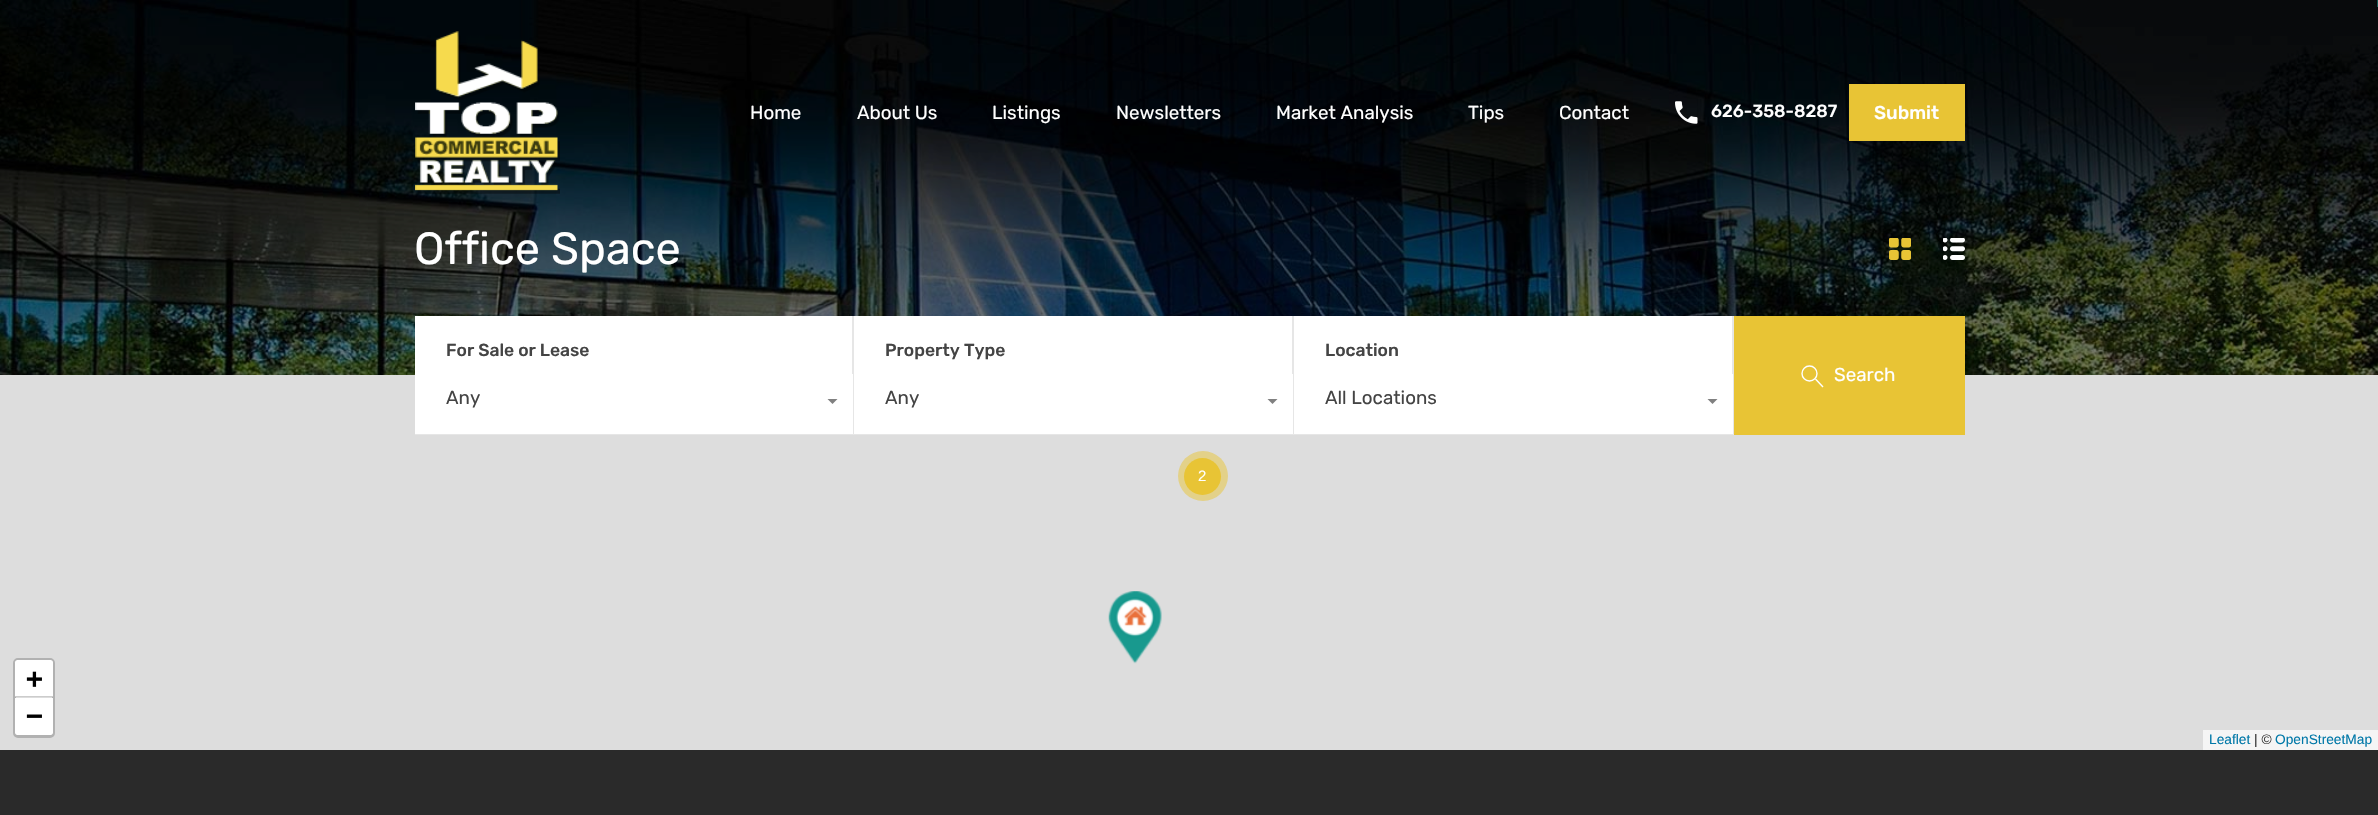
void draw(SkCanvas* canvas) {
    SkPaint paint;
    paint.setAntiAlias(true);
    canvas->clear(0xFF2A2A2A);
    canvas->drawImageRect(SkImages::DeferredFromEncodedData(SkData::MakeFromFileName("img3.png")), SkRect::MakeXYWH(0, 0, 2378, 375), SkSamplingOptions());
    paint.setStyle(SkPaint::kStroke_Style);
    paint.setStrokeWidth(7.1f);
    paint.setColor(0xFF1EA69A);
    canvas->drawPath(SkPathBuilder().moveTo(2377.5f, 3.5f).lineTo(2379, 3.5f).detach(), paint);
    canvas->drawImageRect(SkImages::DeferredFromEncodedData(SkData::MakeFromFileName("img1.png")), SkRect::MakeXYWH(415, 31, 145, 163), SkSamplingOptions());
    SkFont font1(fontMgr->matchFamilyStyle("Rubik", SkFontStyle::Normal()), 18.75f);
    font1.setSubpixel(true);
    paint.setStyle(SkPaint::kFill_Style);
    paint.setColor(0xFFFFFFFF);
    canvas->drawString("Home", 750, 119, font1, paint);
    canvas->drawString("About Us", 857, 119, font1, paint);
    canvas->drawString("Listings", 992, 119, font1, paint);
    canvas->drawString("Newsletters", 1116, 119, font1, paint);
    canvas->drawString("Market Analysis", 1276, 119, font1, paint);
    canvas->drawString("Tips", 1468, 119, font1, paint);
    canvas->drawString("Contact", 1559, 119, font1, paint);
    canvas->drawImageRect(SkImages::DeferredFromEncodedData(SkData::MakeFromFileName("img2.png")), SkRect::MakeXYWH(1675, 101, 23, 23), SkSamplingOptions());
    SkFont font2(fontMgr->matchFamilyStyle("Rubik", SkFontStyle(500, SkFontStyle::kNormal_Width, SkFontStyle::kUpright_Slant)), 17.5f);
    font2.setSubpixel(true);
    canvas->drawString("626-358-8287", 1711, 117, font2, paint);
    paint.setColor(0xFFE8C435);
    canvas->drawRect(SkRect::MakeXYWH(1849, 84, 116, 57), paint);
    SkFont font3(fontMgr->matchFamilyStyle("Rubik", SkFontStyle(500, SkFontStyle::kNormal_Width, SkFontStyle::kUpright_Slant)), 18.75f);
    font3.setSubpixel(true);
    paint.setColor(0xFFFFFFFF);
    canvas->drawString("Submit", 1874, 119, font3, paint);
    SkFont font4(fontMgr->matchFamilyStyle("Rubik", SkFontStyle::Normal()), 45);
    font4.setSubpixel(true);
    canvas->drawString("Office Space", 414, 264, font4, paint);
    canvas->drawImageRect(SkImages::DeferredFromEncodedData(SkData::MakeFromFileName("img4.png")), SkRect::MakeXYWH(1889, 238, 22, 22), SkSamplingOptions());
    canvas->drawImageRect(SkImages::DeferredFromEncodedData(SkData::MakeFromFileName("img5.png")), SkRect::MakeXYWH(1943, 238, 22, 22), SkSamplingOptions());
    paint.setColor(0xFFDDDDDD);
    canvas->drawRect(SkRect::MakeXYWH(0, 375, 2378, 375), paint);
    paint.setColor(0xFFFFFFFF);
    canvas->drawRect(SkRect::MakeXYWH(415, 316, 1319, 119), paint);
    paint.setColor(0xFFE6E6E6);
    canvas->drawPath(SkPathBuilder().moveTo(854, 316).lineTo(854, 435).lineTo(852, 434).lineTo(852, 316).close().detach(), paint);
    paint.setColor(0x33808080);
    canvas->drawPath(SkPathBuilder().moveTo(854, 435).lineTo(415, 435).lineTo(415, 434).lineTo(852, 434).close().detach(), paint);
    paint.setColor(0xFF444444);
    canvas->drawString("For Sale or Lease", 446, 356, font2, paint);
    paint.setColor(0xFFFFFFFF);
    canvas->drawRect(SkRect::MakeXYWH(852, 374, 1, 60), paint);
    paint.setColor(0xFF444444);
    canvas->drawString("Any", 446, 404, font1, paint);
    paint.setColor(0xFF808080);
    canvas->drawPath(SkPathBuilder().moveTo(827.5f, 399).lineTo(837.5f, 399).lineTo(832.5f, 404).close().detach(), paint);
    paint.setColor(0xFFE6E6E6);
    canvas->drawPath(SkPathBuilder().moveTo(1294, 316).lineTo(1294, 435).lineTo(1292, 434).lineTo(1292, 316).close().detach(), paint);
    paint.setColor(0x33808080);
    canvas->drawPath(SkPathBuilder().moveTo(1294, 435).lineTo(854, 435).lineTo(854, 434).lineTo(1292, 434).close().detach(), paint);
    paint.setColor(0xFF444444);
    canvas->drawString("Property Type", 885, 356, font2, paint);
    paint.setColor(0xFFFFFFFF);
    canvas->drawRect(SkRect::MakeXYWH(1292, 374, 1, 60), paint);
    paint.setColor(0xFF444444);
    canvas->drawString("Any", 885, 404, font1, paint);
    paint.setColor(0xFF808080);
    canvas->drawPath(SkPathBuilder().moveTo(1267.5f, 399).lineTo(1277.5f, 399).lineTo(1272.5f, 404).close().detach(), paint);
    paint.setColor(0xFFE6E6E6);
    canvas->drawPath(SkPathBuilder().moveTo(1734, 316).lineTo(1734, 435).lineTo(1732, 434).lineTo(1732, 316).close().detach(), paint);
    paint.setColor(0x33808080);
    canvas->drawPath(SkPathBuilder().moveTo(1734, 435).lineTo(1294, 435).lineTo(1294, 434).lineTo(1732, 434).close().detach(), paint);
    paint.setColor(0xFF444444);
    canvas->drawString("Location", 1325, 356, font2, paint);
    paint.setColor(0xFFFFFFFF);
    canvas->drawRect(SkRect::MakeXYWH(1732, 374, 1, 60), paint);
    paint.setColor(0xFF444444);
    canvas->drawString("All Locations", 1325, 404, font1, paint);
    paint.setColor(0xFF808080);
    canvas->drawPath(SkPathBuilder().moveTo(1707.5f, 399).lineTo(1717.5f, 399).lineTo(1712.5f, 404).close().detach(), paint);
    paint.setColor(0xFFE8C435);
    canvas->drawRect(SkRect::MakeXYWH(1734, 316, 231, 119), paint);
    paint.setStyle(SkPaint::kStroke_Style);
    paint.setStrokeWidth(1.4f);
    paint.setColor(0xFFFFFFFF);
    canvas->drawCircle(1809.5f, 373.5f, 7.5f, paint);
    paint.setStrokeJoin(SkPaint::kRound_Join);
    canvas->drawPath(SkPathBuilder().moveTo(1815.5f, 379).lineTo(1823, 387).detach(), paint);
    paint.setStyle(SkPaint::kFill_Style);
    canvas->drawString("Search", 1834, 381, font1, paint);
    paint.setColor(0xFFE3D189);
    canvas->drawCircle(1203, 476, 25, paint);
    paint.setColor(0xFFE8C435);
    canvas->drawCircle(1202.5f, 476.5f, 18.5f, paint);
    SkFont font5(fontMgr->matchFamilyStyle("Liberation Sans", SkFontStyle::Normal()), 15);
    font5.setSubpixel(true);
    paint.setColor(0xFFFFFFFF);
    canvas->drawString("2", 1198, 481, font5, paint);
    canvas->drawImageRect(SkImages::DeferredFromEncodedData(SkData::MakeFromFileName("img6.png")), SkRect::MakeXYWH(1108, 591, 54, 73), SkSamplingOptions());
    paint.setStyle(SkPaint::kStroke_Style);
    paint.setStrokeWidth(3);
    paint.setStrokeJoin(SkPaint::kMiter_Join);
    paint.setColor(0xFFB1B1B1);
    canvas->drawRoundRect(SkRect::MakeXYWH(14.5f, 659.5f, 39, 77), 3.5f, 3.5f, paint);
    paint.setStyle(SkPaint::kFill_Style);
    paint.setColor(0xFFFFFFFF);
    canvas->drawPath(SkPathBuilder().moveTo(17.5f, 660).lineTo(50.5f, 660).cubicTo(52, 660, 53, 661, 53, 662.5f).lineTo(53, 696).lineTo(15, 696).lineTo(15, 662.5f).cubicTo(15, 661, 16, 660, 17.5f, 660).close().detach(), paint);
    paint.setColor(0xFFCCCCCC);
    canvas->drawRect(SkRect::MakeXYWH(15, 696, 38, 1), paint);
    SkFont font6(fontMgr->matchFamilyStyle("DejaVu Sans Mono", SkFontStyle::Bold()), 28);
    font6.setSubpixel(true);
    paint.setColor(0xFF000000);
    canvas->drawString("+", 26, 688, font6, paint);
    paint.setColor(0xFFFFFFFF);
    canvas->drawPath(SkPathBuilder().moveTo(15, 698).lineTo(53, 698).lineTo(53, 732.5f).cubicTo(53, 734, 52, 735, 50.5f, 735).lineTo(17.5f, 735).cubicTo(16, 735, 15, 734, 15, 732.5f).close().detach(), paint);
    paint.setColor(0xFF000000);
    canvas->drawString("−", 26, 725, font6, paint);
    paint.setColor(0xFFF5F5F5);
    canvas->drawRect(SkRect::MakeXYWH(2203, 730, 175, 20), paint);
    SkFont font7(fontMgr->matchFamilyStyle("Liberation Sans", SkFontStyle::Normal()), 13.75f);
    font7.setSubpixel(true);
    paint.setColor(0xFF0078A8);
    canvas->drawString("Leaflet", 2209, 744, font7, paint);
    paint.setColor(0xFF333333);
    canvas->drawString("| ©", 2254, 744, font7, paint);
    paint.setColor(0xFF0078A8);
    canvas->drawString("OpenStreetMap", 2275, 744, font7, paint);
}
